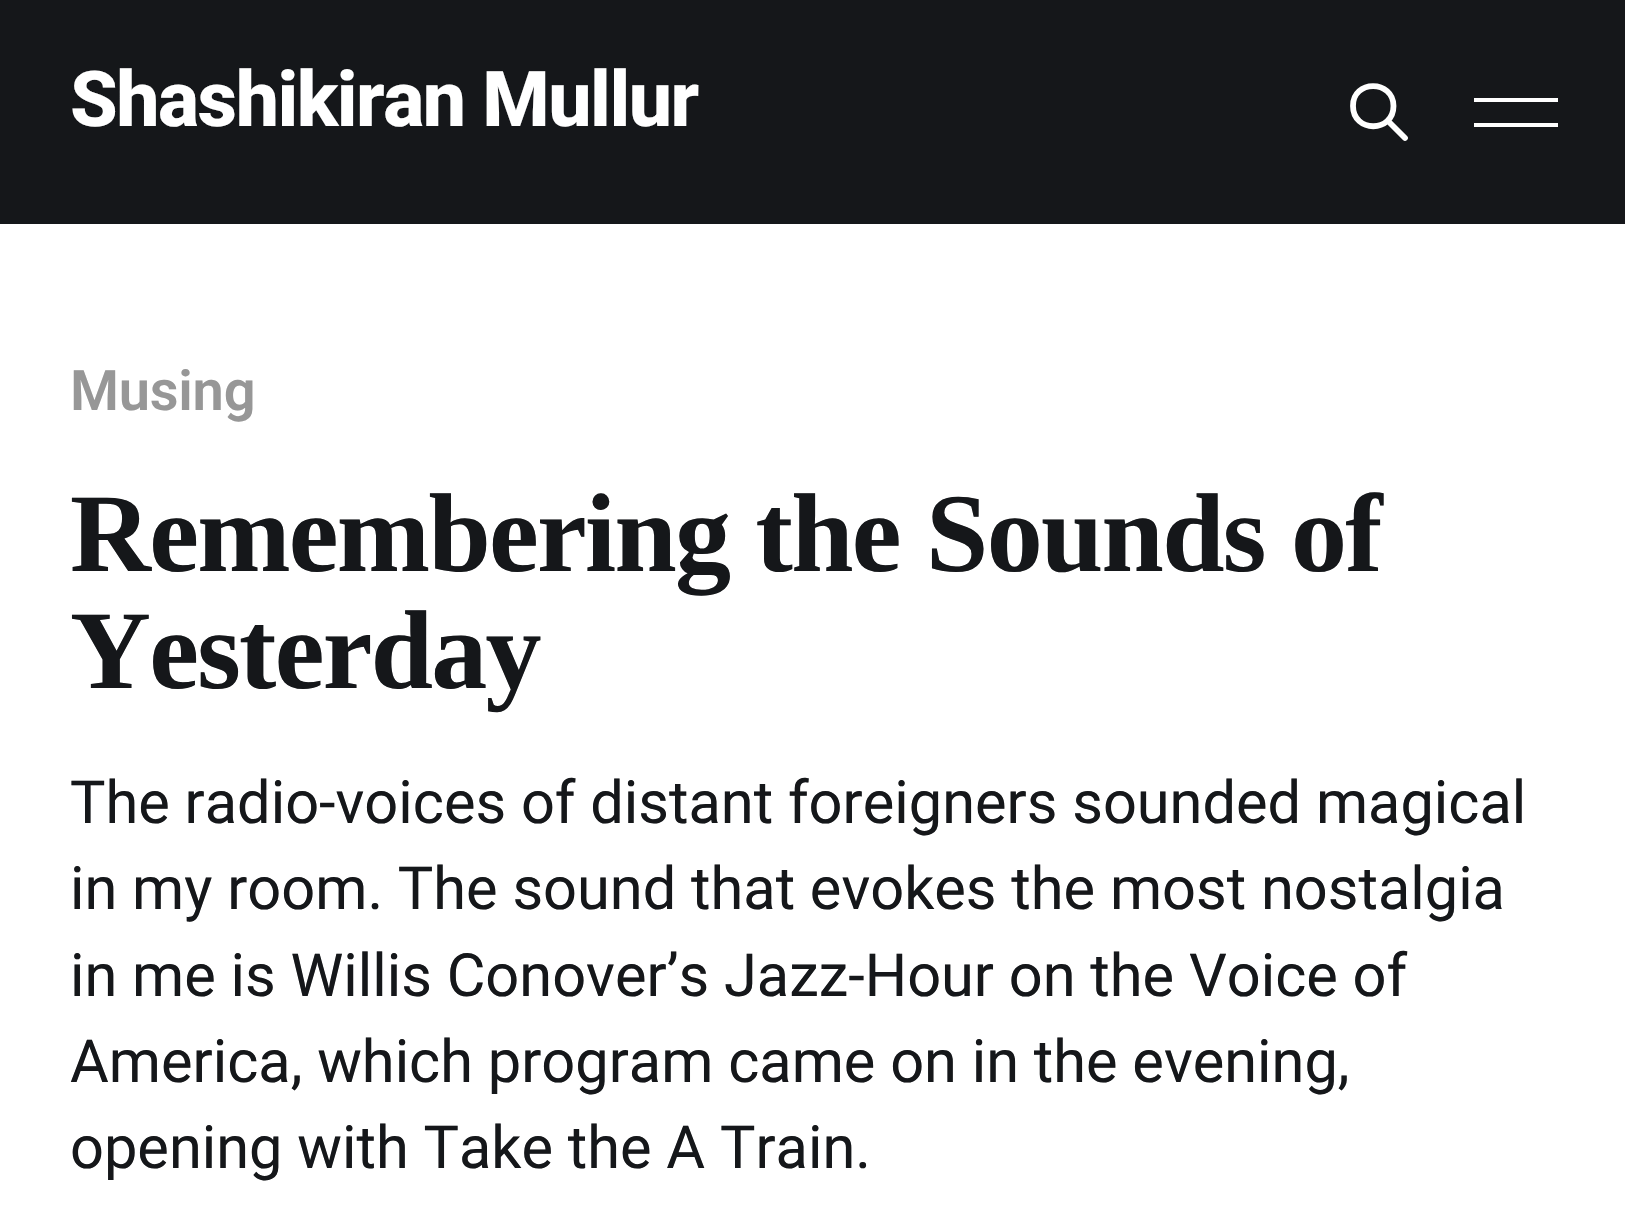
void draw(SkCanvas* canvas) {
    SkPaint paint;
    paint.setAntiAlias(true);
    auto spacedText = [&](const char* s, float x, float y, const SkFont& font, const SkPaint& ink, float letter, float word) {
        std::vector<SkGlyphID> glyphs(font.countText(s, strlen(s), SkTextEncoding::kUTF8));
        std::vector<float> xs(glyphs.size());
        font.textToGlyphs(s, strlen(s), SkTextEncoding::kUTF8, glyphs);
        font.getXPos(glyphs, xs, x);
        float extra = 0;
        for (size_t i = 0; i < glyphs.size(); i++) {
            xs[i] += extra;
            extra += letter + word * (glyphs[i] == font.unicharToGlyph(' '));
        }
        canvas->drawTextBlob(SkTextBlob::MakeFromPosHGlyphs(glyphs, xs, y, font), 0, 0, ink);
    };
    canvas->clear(0xFFFFFFFF);
    paint.setColor(0xFF15171A);
    canvas->drawRect(SkRect::MakeXYWH(0, 0, 1625, 224), paint);
    SkFont font1(fontMgr->matchFamilyStyle("Roboto", SkFontStyle(800, SkFontStyle::kNormal_Width, SkFontStyle::kUpright_Slant)), 77);
    font1.setSubpixel(true);
    paint.setColor(0xFFFFFFFF);
    spacedText("Shashikiran Mullur", 70, 126, font1, paint, -1.5f, 0);
    paint.setStyle(SkPaint::kStroke_Style);
    paint.setStrokeWidth(5.8f);
    paint.setStrokeCap(SkPaint::kRound_Cap);
    paint.setStrokeJoin(SkPaint::kRound_Join);
    canvas->drawPath(SkPathBuilder().moveTo(1405, 138).lineTo(1388, 121).moveTo(1393.5f, 106).cubicTo(1393.5f, 133, 1353, 133, 1353, 106).cubicTo(1352.5f, 79.5f, 1393.5f, 79.5f, 1393.5f, 106).close().detach(), paint);
    paint.setStyle(SkPaint::kFill_Style);
    canvas->drawRect(SkRect::MakeXYWH(1474, 98, 84, 4), paint);
    canvas->drawRect(SkRect::MakeXYWH(1474, 123, 84, 4), paint);
    SkFont font2(fontMgr->matchFamilyStyle("Roboto", SkFontStyle(600, SkFontStyle::kNormal_Width, SkFontStyle::kUpright_Slant)), 56);
    font2.setSubpixel(true);
    paint.setColor(0xFF979797);
    spacedText("Musing", 70, 410, font2, paint, -0.25f, 0);
    SkFont font3(fontMgr->matchFamilyStyle("Liberation Serif", SkFontStyle::Bold()), 112);
    font3.setSubpixel(true);
    paint.setColor(0xFF15171A);
    spacedText("Remembering the Sounds of", 70, 571, font3, paint, -1.7f, 0);
    spacedText("Yesterday", 70, 688, font3, paint, -1.7f, 0);
    SkFont font4(fontMgr->matchFamilyStyle("Roboto", SkFontStyle::Normal()), 59.5f);
    font4.setSubpixel(true);
    canvas->drawString("The radio-voices of distant foreigners sounded magical", 70, 823, font4, paint);
    canvas->drawString("in my room. The sound that evokes the most nostalgia", 70, 909, font4, paint);
    canvas->drawString("in me is Willis Conover’s Jazz-Hour on the Voice of", 70, 996, font4, paint);
    canvas->drawString("America, which program came on in the evening,", 70, 1082, font4, paint);
    canvas->drawString("opening with Take the A Train.", 70, 1168, font4, paint);
}
